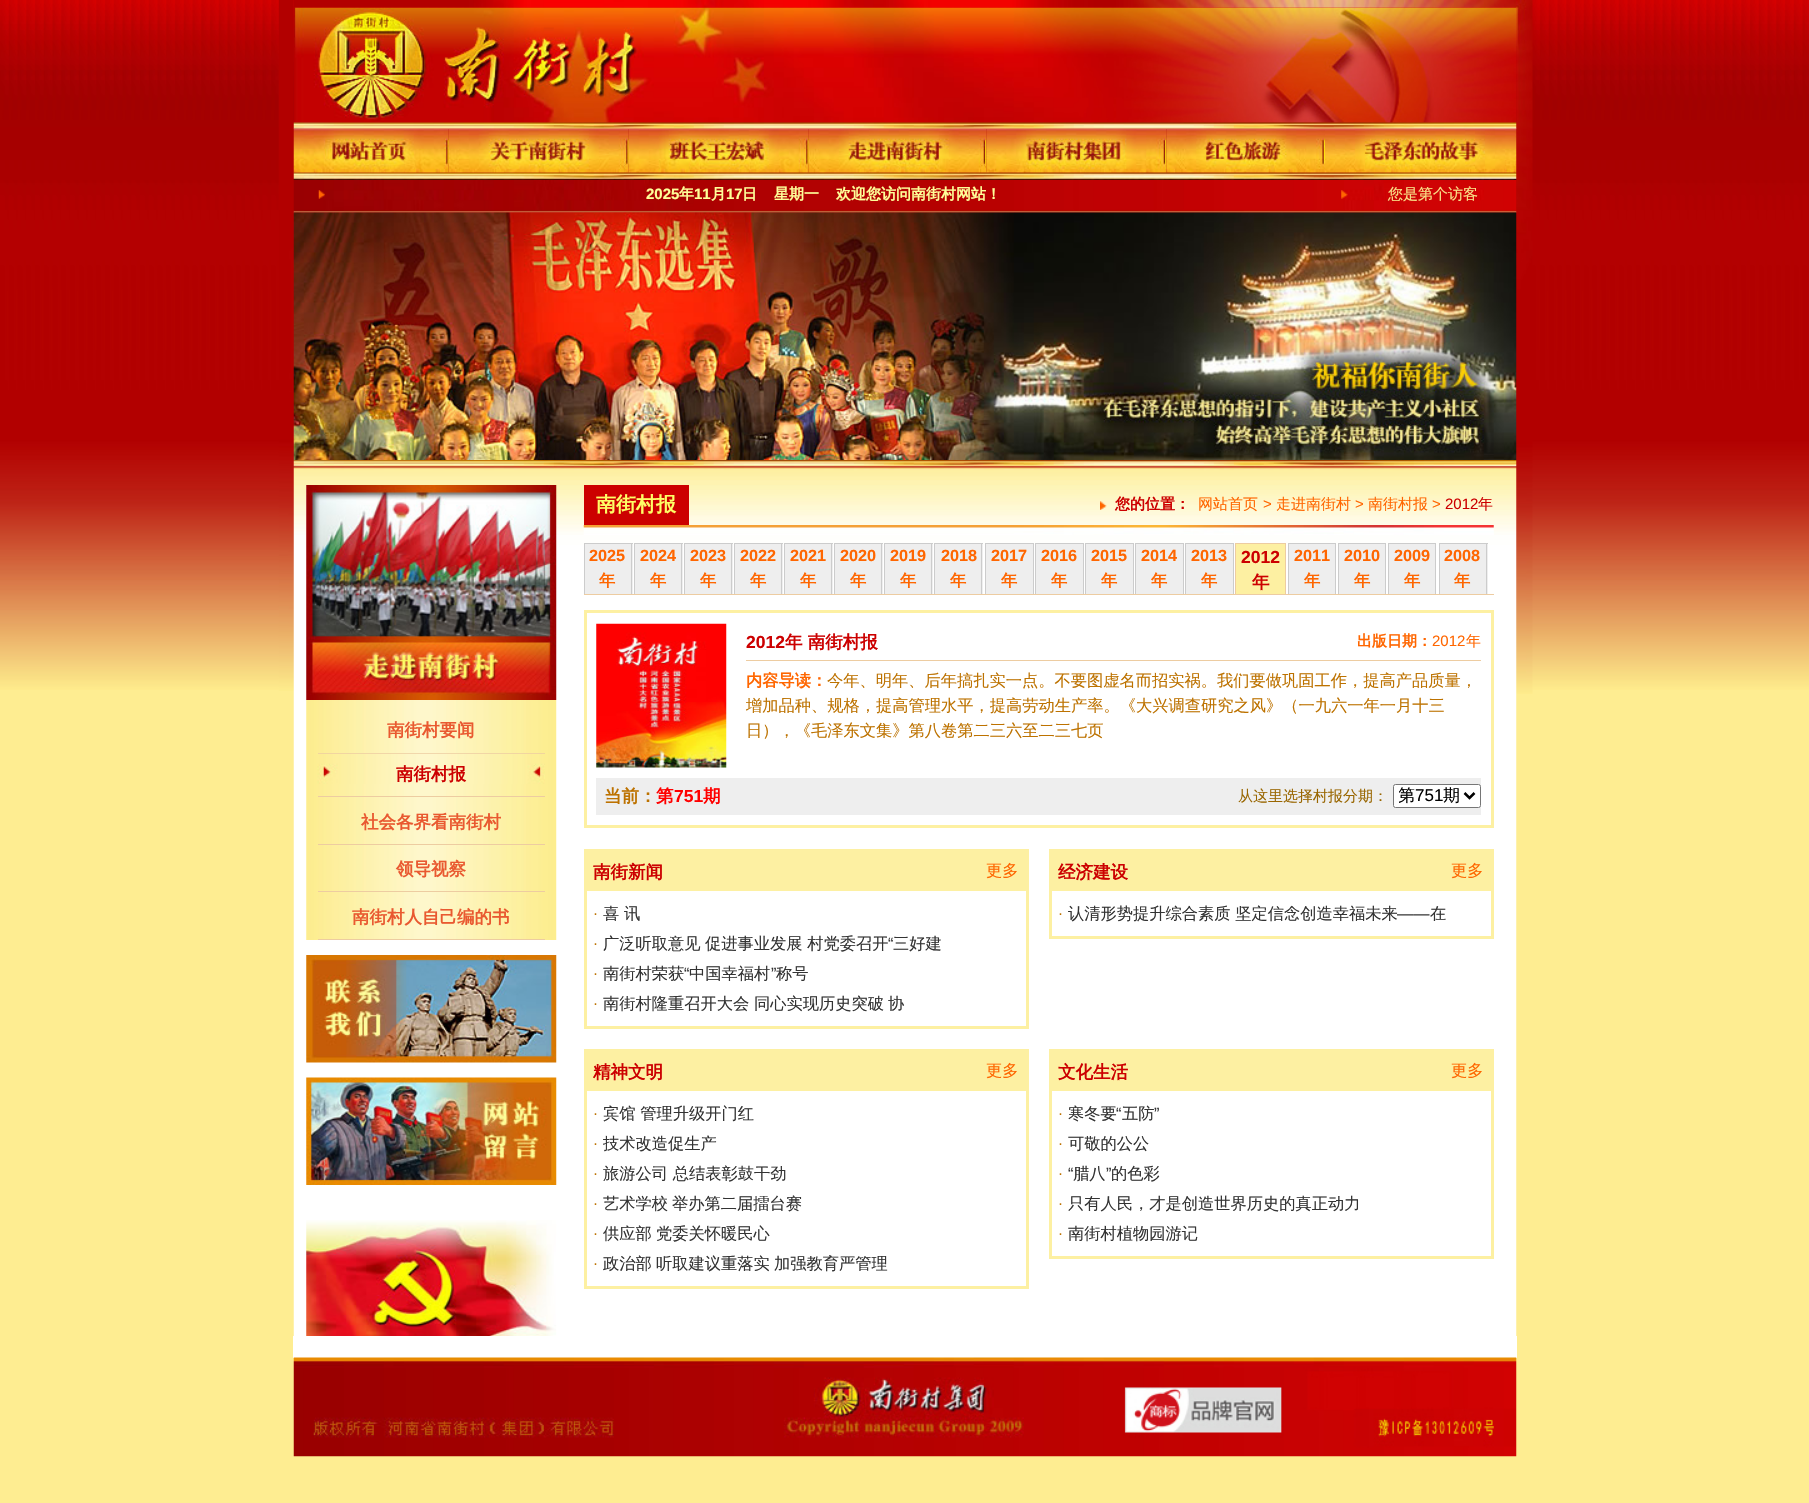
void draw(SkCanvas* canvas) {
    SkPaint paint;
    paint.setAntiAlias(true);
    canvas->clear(0xFFFEED91);
    canvas->drawImageRect(SkImages::DeferredFromEncodedData(SkData::MakeFromFileName("img1.png")), SkRect::MakeXYWH(0, 0, 1809, 690), SkSamplingOptions());
    canvas->drawImageRect(SkImages::DeferredFromEncodedData(SkData::MakeFromFileName("img2.png")), SkRect::MakeXYWH(278, 0, 16, 691), SkSamplingOptions());
    canvas->drawImageRect(SkImages::DeferredFromEncodedData(SkData::MakeFromFileName("img30.png")), SkRect::MakeXYWH(1516, 0, 17, 694), SkSamplingOptions());
    canvas->drawImageRect(SkImages::DeferredFromEncodedData(SkData::MakeFromFileName("img4.png")), SkRect::MakeXYWH(294, 7, 1223, 116), SkSamplingOptions());
    canvas->drawImageRect(SkImages::DeferredFromEncodedData(SkData::MakeFromFileName("img3.png")), SkRect::MakeXYWH(294, 0, 1223, 8), SkSamplingOptions());
    canvas->drawImageRect(SkImages::DeferredFromEncodedData(SkData::MakeFromFileName("img5.png")), SkRect::MakeXYWH(293, 122, 1224, 7), SkSamplingOptions());
    canvas->drawImageRect(SkImages::DeferredFromEncodedData(SkData::MakeFromFileName("img13.png")), SkRect::MakeXYWH(293, 172, 1224, 8), SkSamplingOptions());
    canvas->drawImageRect(SkImages::DeferredFromEncodedData(SkData::MakeFromFileName("img6.png")), SkRect::MakeXYWH(293, 128, 156, 45), SkSamplingOptions());
    canvas->drawImageRect(SkImages::DeferredFromEncodedData(SkData::MakeFromFileName("img7.png")), SkRect::MakeXYWH(448, 128, 181, 45), SkSamplingOptions());
    canvas->drawImageRect(SkImages::DeferredFromEncodedData(SkData::MakeFromFileName("img8.png")), SkRect::MakeXYWH(628, 128, 181, 45), SkSamplingOptions());
    canvas->drawImageRect(SkImages::DeferredFromEncodedData(SkData::MakeFromFileName("img9.png")), SkRect::MakeXYWH(808, 128, 179, 45), SkSamplingOptions());
    canvas->drawImageRect(SkImages::DeferredFromEncodedData(SkData::MakeFromFileName("img10.png")), SkRect::MakeXYWH(986, 128, 181, 45), SkSamplingOptions());
    canvas->drawImageRect(SkImages::DeferredFromEncodedData(SkData::MakeFromFileName("img11.png")), SkRect::MakeXYWH(1166, 128, 159, 45), SkSamplingOptions());
    canvas->drawImageRect(SkImages::DeferredFromEncodedData(SkData::MakeFromFileName("img12.png")), SkRect::MakeXYWH(1325, 128, 192, 45), SkSamplingOptions());
    canvas->drawImageRect(SkImages::DeferredFromEncodedData(SkData::MakeFromFileName("img14.png")), SkRect::MakeXYWH(293, 180, 1224, 33), SkSamplingOptions());
    canvas->drawImageRect(SkImages::DeferredFromEncodedData(SkData::MakeFromFileName("img15.png")), SkRect::MakeXYWH(318, 190, 7, 9), SkSamplingOptions());
    SkFont font1(fontMgr->matchFamilyStyle("Liberation Sans", SkFontStyle::Bold()), 15);
    font1.setSubpixel(true);
    paint.setColor(0xFFFFFF99);
    canvas->drawString("2025", 646, 199, font1, paint);
    SkFont font2(fontMgr->matchFamilyStyle("WenQuanYi Zen Hei", SkFontStyle::Bold()), 15);
    font2.setSubpixel(true);
    canvas->drawString("年", 679, 199, font2, paint);
    canvas->drawString("11", 694, 199, font1, paint);
    canvas->drawString("月", 711, 199, font2, paint);
    canvas->drawString("17", 726, 199, font1, paint);
    canvas->drawString("日", 742, 199, font2, paint);
    canvas->drawString("星期一", 774, 199, font2, paint);
    canvas->drawString("欢迎您访问南街村网站！", 836, 199, font2, paint);
    canvas->drawImageRect(SkImages::DeferredFromEncodedData(SkData::MakeFromFileName("img16.png")), SkRect::MakeXYWH(1341, 190, 7, 9), SkSamplingOptions());
    SkFont font3(fontMgr->matchFamilyStyle("WenQuanYi Zen Hei", SkFontStyle(500, SkFontStyle::kNormal_Width, SkFontStyle::kUpright_Slant)), 15);
    font3.setSubpixel(true);
    paint.setColor(0xFFFAE388);
    canvas->drawString("您是第个访客", 1388, 199, font3, paint);
    canvas->drawImageRect(SkImages::DeferredFromEncodedData(SkData::MakeFromFileName("img17.png")), SkRect::MakeXYWH(293, 212, 1224, 248), SkSamplingOptions());
    canvas->drawImageRect(SkImages::DeferredFromEncodedData(SkData::MakeFromFileName("img18.png")), SkRect::MakeXYWH(293, 460, 1224, 25), SkSamplingOptions());
    canvas->drawImageRect(SkImages::DeferredFromEncodedData(SkData::MakeFromFileName("img19.png")), SkRect::MakeXYWH(293, 485, 1224, 851), SkSamplingOptions());
    paint.setColor(0xFFFFFFFF);
    canvas->drawRect(SkRect::MakeXYWH(306, 485, 250, 55), paint);
    canvas->drawImageRect(SkImages::DeferredFromEncodedData(SkData::MakeFromFileName("img20.png")), SkRect::MakeXYWH(306, 485, 251, 215), SkSamplingOptions());
    canvas->drawImageRect(SkImages::DeferredFromEncodedData(SkData::MakeFromFileName("img21.png")), SkRect::MakeXYWH(306, 700, 251, 240), SkSamplingOptions());
    paint.setColor(0xFFEDCCA1);
    canvas->drawRect(SkRect::MakeXYWH(318, 753, 227, 1), paint);
    SkFont font4(fontMgr->matchFamilyStyle("WenQuanYi Zen Hei", SkFontStyle::Bold()), 17.5f);
    font4.setSubpixel(true);
    paint.setColor(0xFFE95930);
    canvas->drawString("南街村要闻", 387, 736, font4, paint);
    canvas->drawImageRect(SkImages::DeferredFromEncodedData(SkData::MakeFromFileName("img22.png")), SkRect::MakeXYWH(317, 753, 228, 31), SkSamplingOptions());
    paint.setColor(0xFFEDCCA1);
    canvas->drawRect(SkRect::MakeXYWH(318, 796, 227, 1), paint);
    paint.setColor(0xFFCC0000);
    canvas->drawString("南街村报", 396, 780, font4, paint);
    paint.setColor(0xFFEDCCA1);
    canvas->drawRect(SkRect::MakeXYWH(318, 844, 227, 1), paint);
    paint.setColor(0xFFE95930);
    canvas->drawString("社会各界看南街村", 361, 828, font4, paint);
    paint.setColor(0xFFEDCCA1);
    canvas->drawRect(SkRect::MakeXYWH(318, 891, 227, 1), paint);
    paint.setColor(0xFFE95930);
    canvas->drawString("领导视察", 396, 875, font4, paint);
    paint.setColor(0xFFEDCCA1);
    canvas->drawRect(SkRect::MakeXYWH(318, 939, 227, 1), paint);
    paint.setColor(0xFFE95930);
    canvas->drawString("南街村人自己编的书", 352, 923, font4, paint);
    canvas->drawImageRect(SkImages::DeferredFromEncodedData(SkData::MakeFromFileName("img23.png")), SkRect::MakeXYWH(306, 955, 251, 108), SkSamplingOptions());
    canvas->drawImageRect(SkImages::DeferredFromEncodedData(SkData::MakeFromFileName("img24.png")), SkRect::MakeXYWH(306, 1077, 251, 108), SkSamplingOptions());
    paint.setColor(0xFFCC0000);
    canvas->drawRect(SkRect::MakeXYWH(584, 485, 105, 40), paint);
    SkFont font5(fontMgr->matchFamilyStyle("WenQuanYi Zen Hei", SkFontStyle::Bold()), 20);
    font5.setSubpixel(true);
    paint.setColor(0xFFFFFF66);
    canvas->drawString("南街村报", 596, 511, font5, paint);
    canvas->drawImageRect(SkImages::DeferredFromEncodedData(SkData::MakeFromFileName("img25.png")), SkRect::MakeXYWH(1100, 501, 7, 9), SkSamplingOptions());
    paint.setColor(0xFFCC0000);
    canvas->drawString("您的位置：", 1115, 509, font2, paint);
    paint.setColor(0xFFFF6600);
    canvas->drawString("网站首页", 1198, 509, font3, paint);
    SkFont font6(fontMgr->matchFamilyStyle("Liberation Sans", SkFontStyle::Normal()), 15);
    font6.setSubpixel(true);
    canvas->drawString(">", 1263, 509, font6, paint);
    canvas->drawString("走进南街村", 1276, 509, font3, paint);
    canvas->drawString(">", 1355, 509, font6, paint);
    canvas->drawString("南街村报", 1368, 509, font3, paint);
    canvas->drawString(">", 1432, 509, font6, paint);
    paint.setColor(0xFFCC0000);
    canvas->drawString("2012", 1445, 509, font6, paint);
    canvas->drawString("年", 1478, 509, font3, paint);
    canvas->drawImageRect(SkImages::DeferredFromEncodedData(SkData::MakeFromFileName("img26.png")), SkRect::MakeXYWH(583, 525, 911, 10), SkSamplingOptions());
    paint.setColor(0xFFEDCCA1);
    canvas->drawRect(SkRect::MakeXYWH(584, 594, 910, 1), paint);
    paint.setColor(0xFFEEEEEE);
    canvas->drawRect(SkRect::MakeXYWH(585, 544, 48, 50), paint);
    paint.setColor(0xFFCCCCCC);
    canvas->drawRect(SkRect::MakeXYWH(584, 543, 49, 1), paint);
    canvas->drawRect(SkRect::MakeXYWH(631, 543, 1, 51), paint);
    canvas->drawRect(SkRect::MakeXYWH(584, 543, 1, 51), paint);
    SkFont font7(fontMgr->matchFamilyStyle("Liberation Sans", SkFontStyle::Bold()), 16.25f);
    font7.setSubpixel(true);
    paint.setColor(0xFFFF6600);
    canvas->drawString("2025", 589, 561, font7, paint);
    SkFont font8(fontMgr->matchFamilyStyle("WenQuanYi Zen Hei", SkFontStyle::Bold()), 16.25f);
    font8.setSubpixel(true);
    canvas->drawString("年", 599, 586, font8, paint);
    paint.setColor(0xFFEEEEEE);
    canvas->drawRect(SkRect::MakeXYWH(635, 544, 48, 50), paint);
    paint.setColor(0xFFCCCCCC);
    canvas->drawRect(SkRect::MakeXYWH(634, 543, 49, 1), paint);
    canvas->drawRect(SkRect::MakeXYWH(681, 543, 1, 51), paint);
    canvas->drawRect(SkRect::MakeXYWH(634, 543, 1, 51), paint);
    paint.setColor(0xFFFF6600);
    canvas->drawString("2024", 640, 561, font7, paint);
    canvas->drawString("年", 650, 586, font8, paint);
    paint.setColor(0xFFEEEEEE);
    canvas->drawRect(SkRect::MakeXYWH(685, 544, 48, 50), paint);
    paint.setColor(0xFFCCCCCC);
    canvas->drawRect(SkRect::MakeXYWH(684, 543, 49, 1), paint);
    canvas->drawRect(SkRect::MakeXYWH(731, 543, 1, 51), paint);
    canvas->drawRect(SkRect::MakeXYWH(684, 543, 1, 51), paint);
    paint.setColor(0xFFFF6600);
    canvas->drawString("2023", 690, 561, font7, paint);
    canvas->drawString("年", 700, 586, font8, paint);
    paint.setColor(0xFFEEEEEE);
    canvas->drawRect(SkRect::MakeXYWH(735, 544, 48, 50), paint);
    paint.setColor(0xFFCCCCCC);
    canvas->drawRect(SkRect::MakeXYWH(734, 543, 49, 1), paint);
    canvas->drawRect(SkRect::MakeXYWH(781, 543, 1, 51), paint);
    canvas->drawRect(SkRect::MakeXYWH(734, 543, 1, 51), paint);
    paint.setColor(0xFFFF6600);
    canvas->drawString("2022", 740, 561, font7, paint);
    canvas->drawString("年", 750, 586, font8, paint);
    paint.setColor(0xFFEEEEEE);
    canvas->drawRect(SkRect::MakeXYWH(785, 544, 48, 50), paint);
    paint.setColor(0xFFCCCCCC);
    canvas->drawRect(SkRect::MakeXYWH(784, 543, 49, 1), paint);
    canvas->drawRect(SkRect::MakeXYWH(831, 543, 1, 51), paint);
    canvas->drawRect(SkRect::MakeXYWH(784, 543, 1, 51), paint);
    paint.setColor(0xFFFF6600);
    canvas->drawString("2021", 790, 561, font7, paint);
    canvas->drawString("年", 800, 586, font8, paint);
    paint.setColor(0xFFEEEEEE);
    canvas->drawRect(SkRect::MakeXYWH(835, 544, 48, 50), paint);
    paint.setColor(0xFFCCCCCC);
    canvas->drawRect(SkRect::MakeXYWH(834, 543, 49, 1), paint);
    canvas->drawRect(SkRect::MakeXYWH(881, 543, 1, 51), paint);
    canvas->drawRect(SkRect::MakeXYWH(834, 543, 1, 51), paint);
    paint.setColor(0xFFFF6600);
    canvas->drawString("2020", 840, 561, font7, paint);
    canvas->drawString("年", 850, 586, font8, paint);
    paint.setColor(0xFFEEEEEE);
    canvas->drawRect(SkRect::MakeXYWH(885, 544, 48, 50), paint);
    paint.setColor(0xFFCCCCCC);
    canvas->drawRect(SkRect::MakeXYWH(884, 543, 49, 1), paint);
    canvas->drawRect(SkRect::MakeXYWH(931, 543, 1, 51), paint);
    canvas->drawRect(SkRect::MakeXYWH(884, 543, 1, 51), paint);
    paint.setColor(0xFFFF6600);
    canvas->drawString("2019", 890, 561, font7, paint);
    canvas->drawString("年", 900, 586, font8, paint);
    paint.setColor(0xFFEEEEEE);
    canvas->drawRect(SkRect::MakeXYWH(935, 544, 48, 50), paint);
    paint.setColor(0xFFCCCCCC);
    canvas->drawRect(SkRect::MakeXYWH(934, 543, 49, 1), paint);
    canvas->drawRect(SkRect::MakeXYWH(981, 543, 1, 51), paint);
    canvas->drawRect(SkRect::MakeXYWH(934, 543, 1, 51), paint);
    paint.setColor(0xFFFF6600);
    canvas->drawString("2018", 941, 561, font7, paint);
    canvas->drawString("年", 950, 586, font8, paint);
    paint.setColor(0xFFEEEEEE);
    canvas->drawRect(SkRect::MakeXYWH(986, 544, 47, 50), paint);
    paint.setColor(0xFFCCCCCC);
    canvas->drawRect(SkRect::MakeXYWH(985, 543, 49, 1), paint);
    canvas->drawRect(SkRect::MakeXYWH(1033, 543, 1, 51), paint);
    canvas->drawRect(SkRect::MakeXYWH(985, 543, 1, 51), paint);
    paint.setColor(0xFFFF6600);
    canvas->drawString("2017", 991, 561, font7, paint);
    canvas->drawString("年", 1001, 586, font8, paint);
    paint.setColor(0xFFEEEEEE);
    canvas->drawRect(SkRect::MakeXYWH(1036, 544, 47, 50), paint);
    paint.setColor(0xFFCCCCCC);
    canvas->drawRect(SkRect::MakeXYWH(1035, 543, 49, 1), paint);
    canvas->drawRect(SkRect::MakeXYWH(1083, 543, 1, 51), paint);
    canvas->drawRect(SkRect::MakeXYWH(1035, 543, 1, 51), paint);
    paint.setColor(0xFFFF6600);
    canvas->drawString("2016", 1041, 561, font7, paint);
    canvas->drawString("年", 1051, 586, font8, paint);
    paint.setColor(0xFFEEEEEE);
    canvas->drawRect(SkRect::MakeXYWH(1086, 544, 47, 50), paint);
    paint.setColor(0xFFCCCCCC);
    canvas->drawRect(SkRect::MakeXYWH(1085, 543, 49, 1), paint);
    canvas->drawRect(SkRect::MakeXYWH(1133, 543, 1, 51), paint);
    canvas->drawRect(SkRect::MakeXYWH(1085, 543, 1, 51), paint);
    paint.setColor(0xFFFF6600);
    canvas->drawString("2015", 1091, 561, font7, paint);
    canvas->drawString("年", 1101, 586, font8, paint);
    paint.setColor(0xFFEEEEEE);
    canvas->drawRect(SkRect::MakeXYWH(1136, 544, 47, 50), paint);
    paint.setColor(0xFFCCCCCC);
    canvas->drawRect(SkRect::MakeXYWH(1135, 543, 49, 1), paint);
    canvas->drawRect(SkRect::MakeXYWH(1183, 543, 1, 51), paint);
    canvas->drawRect(SkRect::MakeXYWH(1135, 543, 1, 51), paint);
    paint.setColor(0xFFFF6600);
    canvas->drawString("2014", 1141, 561, font7, paint);
    canvas->drawString("年", 1151, 586, font8, paint);
    paint.setColor(0xFFEEEEEE);
    canvas->drawRect(SkRect::MakeXYWH(1186, 544, 47, 50), paint);
    paint.setColor(0xFFCCCCCC);
    canvas->drawRect(SkRect::MakeXYWH(1185, 543, 49, 1), paint);
    canvas->drawRect(SkRect::MakeXYWH(1233, 543, 1, 51), paint);
    canvas->drawRect(SkRect::MakeXYWH(1185, 543, 1, 51), paint);
    paint.setColor(0xFFFF6600);
    canvas->drawString("2013", 1191, 561, font7, paint);
    canvas->drawString("年", 1201, 586, font8, paint);
    paint.setColor(0xFFFDF0A2);
    canvas->drawRect(SkRect::MakeXYWH(1236, 544, 49, 50), paint);
    paint.setColor(0xFFEDCCA1);
    canvas->drawRect(SkRect::MakeXYWH(1235, 543, 51, 1), paint);
    canvas->drawRect(SkRect::MakeXYWH(1285, 543, 1, 51), paint);
    canvas->drawRect(SkRect::MakeXYWH(1235, 543, 1, 51), paint);
    SkFont font9(fontMgr->matchFamilyStyle("Liberation Sans", SkFontStyle::Bold()), 17.5f);
    font9.setSubpixel(true);
    paint.setColor(0xFFCC0000);
    canvas->drawString("2012", 1241, 563, font9, paint);
    canvas->drawString("年", 1252, 588, font4, paint);
    paint.setColor(0xFFEEEEEE);
    canvas->drawRect(SkRect::MakeXYWH(1289, 544, 46, 50), paint);
    paint.setColor(0xFFCCCCCC);
    canvas->drawRect(SkRect::MakeXYWH(1288, 543, 48, 1), paint);
    canvas->drawRect(SkRect::MakeXYWH(1335, 543, 1, 51), paint);
    canvas->drawRect(SkRect::MakeXYWH(1288, 543, 1, 51), paint);
    paint.setColor(0xFFFF6600);
    canvas->drawString("2011", 1294, 561, font7, paint);
    canvas->drawString("年", 1304, 586, font8, paint);
    paint.setColor(0xFFEEEEEE);
    canvas->drawRect(SkRect::MakeXYWH(1339, 544, 46, 50), paint);
    paint.setColor(0xFFCCCCCC);
    canvas->drawRect(SkRect::MakeXYWH(1338, 543, 48, 1), paint);
    canvas->drawRect(SkRect::MakeXYWH(1385, 543, 1, 51), paint);
    canvas->drawRect(SkRect::MakeXYWH(1338, 543, 1, 51), paint);
    paint.setColor(0xFFFF6600);
    canvas->drawString("2010", 1344, 561, font7, paint);
    canvas->drawString("年", 1354, 586, font8, paint);
    paint.setColor(0xFFEEEEEE);
    canvas->drawRect(SkRect::MakeXYWH(1389, 544, 46, 50), paint);
    paint.setColor(0xFFCCCCCC);
    canvas->drawRect(SkRect::MakeXYWH(1388, 543, 48, 1), paint);
    canvas->drawRect(SkRect::MakeXYWH(1435, 543, 1, 51), paint);
    canvas->drawRect(SkRect::MakeXYWH(1388, 543, 1, 51), paint);
    paint.setColor(0xFFFF6600);
    canvas->drawString("2009", 1394, 561, font7, paint);
    canvas->drawString("年", 1404, 586, font8, paint);
    paint.setColor(0xFFEEEEEE);
    canvas->drawRect(SkRect::MakeXYWH(1440, 544, 48, 50), paint);
    paint.setColor(0xFFCCCCCC);
    canvas->drawRect(SkRect::MakeXYWH(1439, 543, 49, 1), paint);
    canvas->drawRect(SkRect::MakeXYWH(1486, 543, 1, 51), paint);
    canvas->drawRect(SkRect::MakeXYWH(1439, 543, 1, 51), paint);
    paint.setColor(0xFFFF6600);
    canvas->drawString("2008", 1444, 561, font7, paint);
    canvas->drawString("年", 1454, 586, font8, paint);
    paint.setStyle(SkPaint::kStroke_Style);
    paint.setStrokeWidth(3);
    paint.setColor(0xFFFDF0A2);
    canvas->drawRect(SkRect::MakeXYWH(585.5f, 611.5f, 907, 215), paint);
    canvas->drawImageRect(SkImages::DeferredFromEncodedData(SkData::MakeFromFileName("img27.png")), SkRect::MakeXYWH(596, 623, 131, 145), SkSamplingOptions());
    paint.setStyle(SkPaint::kFill_Style);
    paint.setColor(0xFFEDCCA1);
    canvas->drawRect(SkRect::MakeXYWH(746, 660, 735, 1), paint);
    paint.setColor(0xFFCC0000);
    canvas->drawString("2012", 746, 648, font9, paint);
    canvas->drawString("年 南街村报", 785, 648, font4, paint);
    paint.setColor(0xFFFF6600);
    canvas->drawString("出版日期：", 1357, 646, font2, paint);
    canvas->drawString("2012", 1432, 646, font6, paint);
    canvas->drawString("年", 1466, 646, font3, paint);
    canvas->drawString("内容导读：", 746, 686, font8, paint);
    SkFont font10(fontMgr->matchFamilyStyle("WenQuanYi Zen Hei", SkFontStyle(500, SkFontStyle::kNormal_Width, SkFontStyle::kUpright_Slant)), 16.25f);
    font10.setSubpixel(true);
    paint.setColor(0xFFBD7200);
    canvas->drawString("今年、明年、后年搞扎实一点。不要图虚名而招实祸。我们要做巩固工作，提高产品质量，", 827, 686, font10, paint);
    canvas->drawString("增加品种、规格，提高管理水平，提高劳动生产率。《大兴调查研究之风》（一九六一年一月十三", 746, 711, font10, paint);
    canvas->drawString("日），《毛泽东文集》第八卷第二三六至二三七页", 746, 736, font10, paint);
    paint.setColor(0xFFEEEEEE);
    canvas->drawRect(SkRect::MakeXYWH(596, 778, 885, 37), paint);
    paint.setColor(0xFFBD7200);
    canvas->drawString("当前：", 604, 802, font4, paint);
    paint.setColor(0xFFFF0000);
    canvas->drawString("第", 656, 802, font4, paint);
    canvas->drawString("751", 674, 802, font9, paint);
    canvas->drawString("期", 703, 802, font4, paint);
    paint.setColor(0xFF996600);
    canvas->drawString("从这里选择村报分期：", 1238, 801, font3, paint);
    paint.setColor(0xFFFFFFFF);
    canvas->drawRoundRect(SkRect::MakeXYWH(1393.5f, 784.5f, 87, 23), 2, 2, paint);
    paint.setStyle(SkPaint::kStroke_Style);
    paint.setStrokeWidth(1);
    paint.setColor(0xFF767676);
    canvas->drawRoundRect(SkRect::MakeXYWH(1393.5f, 784.5f, 87, 23), 2, 2, paint);
    paint.setStrokeWidth(2.5f);
    paint.setColor(0xFF000000);
    canvas->drawPath(SkPathBuilder().moveTo(1464.5f, 793).lineTo(1469.5f, 798).lineTo(1474.5f, 793).detach(), paint);
    canvas->save();
    canvas->clipRect(SkRect::MakeXYWH(1399, 785, 61, 21));
    SkFont font11(fontMgr->matchFamilyStyle("WenQuanYi Zen Hei", SkFontStyle(500, SkFontStyle::kNormal_Width, SkFontStyle::kUpright_Slant)), 17);
    font11.setSubpixel(true);
    paint.setStyle(SkPaint::kFill_Style);
    canvas->drawString("第", 1398, 801, font11, paint);
    canvas->restore();
    SkFont font12(fontMgr->matchFamilyStyle("Liberation Sans", SkFontStyle::Normal()), 17);
    font12.setSubpixel(true);
    canvas->drawString("751", 1415, 801, font12, paint);
    canvas->drawString("期", 1443, 801, font11, paint);
    paint.setStyle(SkPaint::kStroke_Style);
    paint.setStrokeWidth(3);
    paint.setColor(0xFFFDF0A2);
    canvas->drawRect(SkRect::MakeXYWH(585.5f, 850.5f, 442, 177), paint);
    paint.setStyle(SkPaint::kFill_Style);
    canvas->drawRect(SkRect::MakeXYWH(587, 852, 439, 39), paint);
    paint.setColor(0xFFCC0000);
    canvas->drawString("南街新闻", 593, 878, font4, paint);
    paint.setColor(0xFFFF6600);
    canvas->drawString("更多", 986, 876, font10, paint);
    SkFont font13(fontMgr->matchFamilyStyle("Liberation Serif", SkFontStyle::Normal()), 15);
    font13.setSubpixel(true);
    paint.setColor(0xFFBD7200);
    canvas->drawString("·", 593, 919, font13, paint);
    paint.setColor(0xFF333333);
    canvas->drawString("喜 讯", 603, 919, font10, paint);
    canvas->drawString("广泛听取意见", 603, 949, font10, paint);
    canvas->drawString("促进事业发展 村党委召开", 705, 949, font10, paint);
    SkFont font14(fontMgr->matchFamilyStyle("Liberation Sans", SkFontStyle::Normal()), 16.25f);
    font14.setSubpixel(true);
    canvas->drawString("“", 888, 949, font14, paint);
    canvas->drawString("三好建", 893, 949, font10, paint);
    paint.setColor(0xFFBD7200);
    canvas->drawString("·", 593, 949, font13, paint);
    paint.setColor(0xFF333333);
    canvas->drawString("南街村荣获", 603, 979, font10, paint);
    canvas->drawString("“", 684, 979, font14, paint);
    canvas->drawString("中国幸福村", 689, 979, font10, paint);
    canvas->drawString("”", 771, 979, font14, paint);
    canvas->drawString("称号", 776, 979, font10, paint);
    paint.setColor(0xFFBD7200);
    canvas->drawString("·", 593, 979, font13, paint);
    canvas->drawString("·", 593, 1009, font13, paint);
    paint.setColor(0xFF333333);
    canvas->drawString("南街村隆重召开大会 同心实现历史突破", 603, 1009, font10, paint);
    canvas->drawString("协", 888, 1009, font10, paint);
    paint.setStyle(SkPaint::kStroke_Style);
    paint.setColor(0xFFFDF0A2);
    canvas->drawRect(SkRect::MakeXYWH(1050.5f, 850.5f, 442, 87), paint);
    paint.setStyle(SkPaint::kFill_Style);
    canvas->drawRect(SkRect::MakeXYWH(1052, 852, 439, 39), paint);
    paint.setColor(0xFFCC0000);
    canvas->drawString("经济建设", 1058, 878, font4, paint);
    paint.setColor(0xFFFF6600);
    canvas->drawString("更多", 1451, 876, font10, paint);
    paint.setColor(0xFFBD7200);
    canvas->drawString("·", 1058, 919, font13, paint);
    paint.setColor(0xFF333333);
    canvas->drawString("认清形势提升综合素质 坚定信念创造幸福未来", 1068, 919, font10, paint);
    canvas->drawString("——", 1397, 919, font14, paint);
    canvas->drawString("在", 1430, 919, font10, paint);
    paint.setStyle(SkPaint::kStroke_Style);
    paint.setColor(0xFFFDF0A2);
    canvas->drawRect(SkRect::MakeXYWH(585.5f, 1050.5f, 442, 237), paint);
    paint.setStyle(SkPaint::kFill_Style);
    canvas->drawRect(SkRect::MakeXYWH(587, 1052, 439, 39), paint);
    paint.setColor(0xFFCC0000);
    canvas->drawString("精神文明", 593, 1078, font4, paint);
    paint.setColor(0xFFFF6600);
    canvas->drawString("更多", 986, 1076, font10, paint);
    paint.setColor(0xFFBD7200);
    canvas->drawString("·", 593, 1119, font13, paint);
    paint.setColor(0xFF333333);
    canvas->drawString("宾馆 管理升级开门红", 603, 1119, font10, paint);
    paint.setColor(0xFFBD7200);
    canvas->drawString("·", 593, 1149, font13, paint);
    paint.setColor(0xFF333333);
    canvas->drawString("技术改造促生产", 603, 1149, font10, paint);
    paint.setColor(0xFFBD7200);
    canvas->drawString("·", 593, 1179, font13, paint);
    paint.setColor(0xFF333333);
    canvas->drawString("旅游公司 总结表彰鼓干劲", 603, 1179, font10, paint);
    paint.setColor(0xFFBD7200);
    canvas->drawString("·", 593, 1209, font13, paint);
    paint.setColor(0xFF333333);
    canvas->drawString("艺术学校", 603, 1209, font10, paint);
    canvas->drawString("举办第二届擂台赛", 672, 1209, font10, paint);
    paint.setColor(0xFFBD7200);
    canvas->drawString("·", 593, 1239, font13, paint);
    paint.setColor(0xFF333333);
    canvas->drawString("供应部", 603, 1239, font10, paint);
    canvas->drawString("党委关怀暖民心", 656, 1239, font10, paint);
    paint.setColor(0xFFBD7200);
    canvas->drawString("·", 593, 1269, font13, paint);
    paint.setColor(0xFF333333);
    canvas->drawString("政治部", 603, 1269, font10, paint);
    canvas->drawString("听取建议重落实", 656, 1269, font10, paint);
    canvas->drawString("加强教育严管理", 774, 1269, font10, paint);
    paint.setStyle(SkPaint::kStroke_Style);
    paint.setColor(0xFFFDF0A2);
    canvas->drawRect(SkRect::MakeXYWH(1050.5f, 1050.5f, 442, 207), paint);
    paint.setStyle(SkPaint::kFill_Style);
    canvas->drawRect(SkRect::MakeXYWH(1052, 1052, 439, 39), paint);
    paint.setColor(0xFFCC0000);
    canvas->drawString("文化生活", 1058, 1078, font4, paint);
    paint.setColor(0xFFFF6600);
    canvas->drawString("更多", 1451, 1076, font10, paint);
    paint.setColor(0xFF333333);
    canvas->drawString("寒冬要", 1068, 1119, font10, paint);
    canvas->drawString("“", 1116, 1119, font14, paint);
    canvas->drawString("五防", 1122, 1119, font10, paint);
    canvas->drawString("”", 1154, 1119, font14, paint);
    paint.setColor(0xFFBD7200);
    canvas->drawString("·", 1058, 1119, font13, paint);
    canvas->drawString("·", 1058, 1149, font13, paint);
    paint.setColor(0xFF333333);
    canvas->drawString("可敬的公公", 1068, 1149, font10, paint);
    canvas->drawString("“", 1068, 1179, font14, paint);
    canvas->drawString("腊八", 1073, 1179, font10, paint);
    canvas->drawString("”", 1106, 1179, font14, paint);
    canvas->drawString("的色彩", 1111, 1179, font10, paint);
    paint.setColor(0xFFBD7200);
    canvas->drawString("·", 1058, 1179, font13, paint);
    canvas->drawString("·", 1058, 1209, font13, paint);
    paint.setColor(0xFF333333);
    canvas->drawString("只有人民，才是创造世界历史的真正动力", 1068, 1209, font10, paint);
    paint.setColor(0xFFBD7200);
    canvas->drawString("·", 1058, 1239, font13, paint);
    paint.setColor(0xFF333333);
    canvas->drawString("南街村植物园游记", 1068, 1239, font10, paint);
    canvas->drawImageRect(SkImages::DeferredFromEncodedData(SkData::MakeFromFileName("img28.png")), SkRect::MakeXYWH(306, 1220, 251, 116), SkSamplingOptions());
    paint.setColor(0xFFFFFFFF);
    canvas->drawRect(SkRect::MakeXYWH(293, 1336, 1224, 22), paint);
    canvas->drawImageRect(SkImages::DeferredFromEncodedData(SkData::MakeFromFileName("img29.png")), SkRect::MakeXYWH(293, 1357, 1224, 100), SkSamplingOptions());
}
